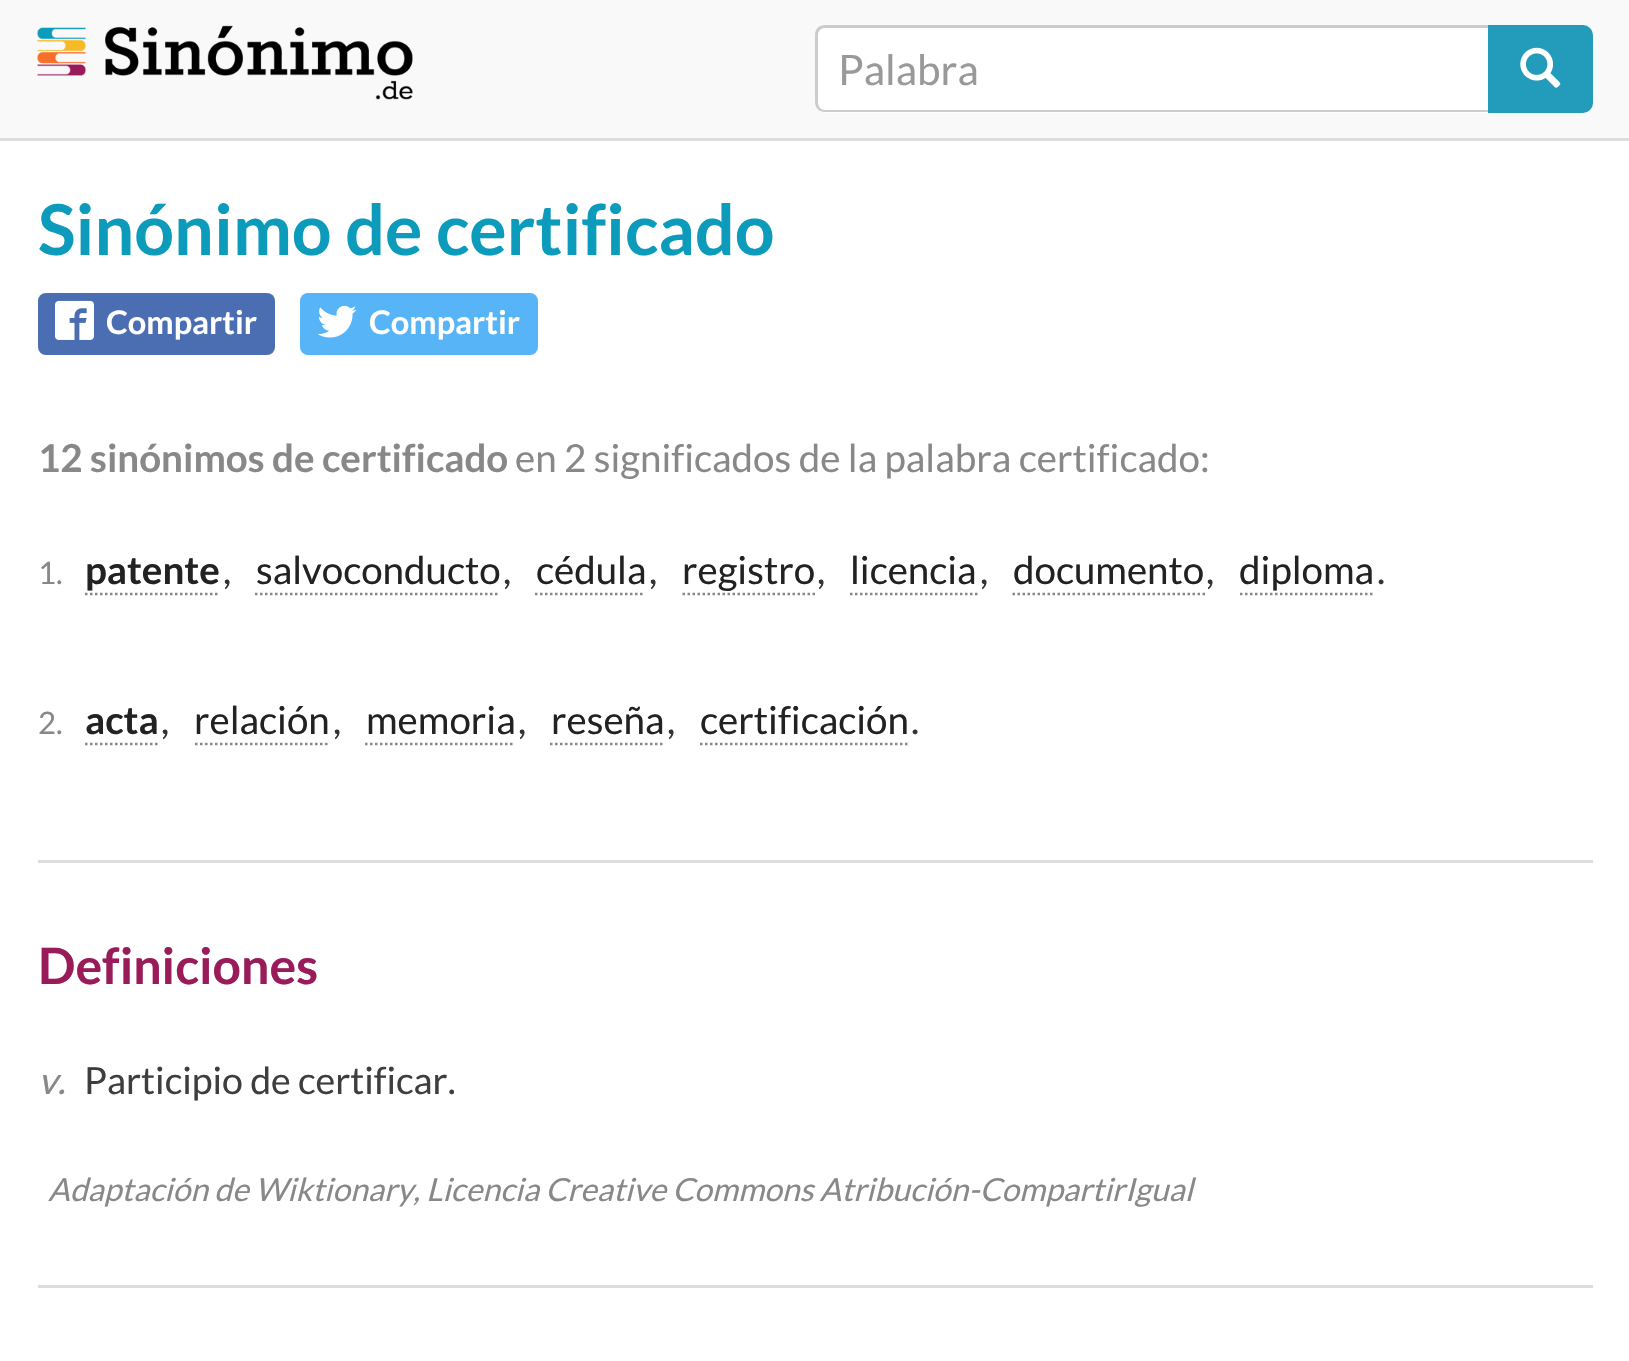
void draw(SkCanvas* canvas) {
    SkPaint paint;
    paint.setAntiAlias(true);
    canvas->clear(0xFFFFFFFF);
    paint.setColor(0xFFF9F9F9);
    canvas->drawRect(SkRect::MakeXYWH(0, 0, 1629, 138), paint);
    paint.setColor(0xFFDDDDDD);
    canvas->drawRect(SkRect::MakeXYWH(0, 138, 1629, 3), paint);
    canvas->drawImageRect(SkImages::DeferredFromEncodedData(SkData::MakeFromFileName("img1.png")), SkRect::MakeXYWH(37, 25, 376, 75), SkSamplingOptions());
    paint.setColor(0xFFFFFFFF);
    canvas->drawPath(SkPathBuilder().moveTo(825, 25).lineTo(1490, 25).lineTo(1490, 113).lineTo(825, 113).cubicTo(819.5f, 113, 815, 108.5f, 815, 103).lineTo(815, 35).cubicTo(815, 29.5f, 819.5f, 25, 825, 25).close().detach(), paint);
    paint.setColor(0xFFCCCCCC);
    canvas->drawPath(SkPathBuilder(SkPathFillType::kEvenOdd).moveTo(825, 25).lineTo(1490, 25).lineTo(1490, 112).lineTo(825, 112).cubicTo(819, 112, 815, 108, 815, 102).lineTo(815, 35).cubicTo(815, 29, 819, 25, 825, 25).close().moveTo(825, 28).lineTo(1490, 28).lineTo(1490, 110).lineTo(825, 110).cubicTo(821, 110, 818, 107, 818, 102).lineTo(818, 35).cubicTo(818, 31, 821, 28, 825, 28).close().detach(), paint);
    SkFont font1(fontMgr->matchFamilyStyle("Lato", SkFontStyle::Normal()), 42);
    font1.setSubpixel(true);
    paint.setColor(0xFF999999);
    canvas->drawString("Palabra", 838, 85, font1, paint);
    paint.setColor(0xFF239BBB);
    canvas->drawPath(SkPathBuilder().moveTo(1489.5f, 26.5f).lineTo(1583, 26.5f).cubicTo(1587.5f, 26.5f, 1591.5f, 30.5f, 1591.5f, 35).lineTo(1591.5f, 103).cubicTo(1591.5f, 107.5f, 1587.5f, 111.5f, 1583, 111.5f).lineTo(1489.5f, 111.5f).close().detach(), paint);
    paint.setStyle(SkPaint::kStroke_Style);
    paint.setStrokeWidth(3);
    canvas->drawPath(SkPathBuilder().moveTo(1489.5f, 26.5f).lineTo(1583, 26.5f).cubicTo(1587.5f, 26.5f, 1591.5f, 30.5f, 1591.5f, 35).lineTo(1591.5f, 103).cubicTo(1591.5f, 107.5f, 1587.5f, 111.5f, 1583, 111.5f).lineTo(1489.5f, 111.5f).close().detach(), paint);
    canvas->drawImageRect(SkImages::DeferredFromEncodedData(SkData::MakeFromFileName("img2.png")), SkRect::MakeXYWH(1520, 47, 41, 41), SkSamplingOptions());
    SkFont font2(fontMgr->matchFamilyStyle("Lato", SkFontStyle::Bold()), 70);
    font2.setSubpixel(true);
    paint.setStyle(SkPaint::kFill_Style);
    paint.setColor(0xFF0D9BBC);
    canvas->drawString("Sinónimo de certificado", 38, 255, font2, paint);
    paint.setColor(0xFF4B6DB1);
    canvas->drawRoundRect(SkRect::MakeXYWH(38, 293, 237, 62), 8, 8, paint);
    canvas->drawImageRect(SkImages::DeferredFromEncodedData(SkData::MakeFromFileName("img3.png")), SkRect::MakeXYWH(55, 300, 39, 40), SkSamplingOptions());
    SkFont font3(fontMgr->matchFamilyStyle("Lato", SkFontStyle::Bold()), 32.5f);
    font3.setSubpixel(true);
    paint.setColor(0xFFFFFFFF);
    canvas->drawString("Compartir", 106, 334, font3, paint);
    paint.setColor(0xFF57B4F7);
    canvas->drawRoundRect(SkRect::MakeXYWH(300, 293, 238, 62), 8, 8, paint);
    canvas->drawImageRect(SkImages::DeferredFromEncodedData(SkData::MakeFromFileName("img4.png")), SkRect::MakeXYWH(317, 305, 40, 33), SkSamplingOptions());
    paint.setColor(0xFFFFFFFF);
    canvas->drawString("Compartir", 369, 334, font3, paint);
    SkFont font4(fontMgr->matchFamilyStyle("Lato", SkFontStyle::Bold()), 38.5f);
    font4.setSubpixel(true);
    paint.setColor(0xFF888888);
    canvas->drawString("12 sinónimos de certificado", 38, 472, font4, paint);
    SkFont font5(fontMgr->matchFamilyStyle("Lato", SkFontStyle::Normal()), 38.5f);
    font5.setSubpixel(true);
    canvas->drawString("en 2 significados de la palabra certificado:", 515, 472, font5, paint);
    SkFont font6(fontMgr->matchFamilyStyle("Lato", SkFontStyle::Normal()), 31);
    font6.setSubpixel(true);
    canvas->drawString("1.", 38, 584, font6, paint);
    paint.setColor(0xFF222222);
    canvas->drawString("patente", 85, 584, font4, paint);
    paint.setStyle(SkPaint::kStroke_Style);
    paint.setStrokeWidth(2.5f);
    paint.setColor(0xFF888888);
    paint.setPathEffect(SkDashPathEffect::Make({{2.5f, 2.5f}}, 0));
    canvas->drawPath(SkPathBuilder().moveTo(85, 594).lineTo(220, 594).detach(), paint);
    paint.setPathEffect(nullptr);
    paint.setStyle(SkPaint::kFill_Style);
    paint.setColor(0xFF333333);
    canvas->drawString(",", 223, 584, font5, paint);
    paint.setColor(0xFF222222);
    canvas->drawString("salvoconducto", 256, 584, font5, paint);
    paint.setStyle(SkPaint::kStroke_Style);
    paint.setColor(0xFF888888);
    paint.setPathEffect(SkDashPathEffect::Make({{2.5f, 2.5f}}, 0));
    canvas->drawPath(SkPathBuilder().moveTo(255, 594).lineTo(500, 594).detach(), paint);
    paint.setPathEffect(nullptr);
    paint.setStyle(SkPaint::kFill_Style);
    paint.setColor(0xFF333333);
    canvas->drawString(",", 503, 584, font5, paint);
    paint.setColor(0xFF222222);
    canvas->drawString("cédula", 536, 584, font5, paint);
    paint.setStyle(SkPaint::kStroke_Style);
    paint.setColor(0xFF888888);
    paint.setPathEffect(SkDashPathEffect::Make({{2.5f, 2.5f}}, 0));
    canvas->drawPath(SkPathBuilder().moveTo(535, 594).lineTo(645, 594).detach(), paint);
    paint.setPathEffect(nullptr);
    paint.setStyle(SkPaint::kFill_Style);
    paint.setColor(0xFF333333);
    canvas->drawString(",", 649, 584, font5, paint);
    paint.setColor(0xFF222222);
    canvas->drawString("registro", 682, 584, font5, paint);
    paint.setStyle(SkPaint::kStroke_Style);
    paint.setColor(0xFF888888);
    paint.setPathEffect(SkDashPathEffect::Make({{2.5f, 2.5f}}, 0));
    canvas->drawPath(SkPathBuilder().moveTo(682.5f, 594).lineTo(815, 594).detach(), paint);
    paint.setPathEffect(nullptr);
    paint.setStyle(SkPaint::kFill_Style);
    paint.setColor(0xFF333333);
    canvas->drawString(",", 817, 584, font5, paint);
    paint.setColor(0xFF222222);
    canvas->drawString("licencia", 850, 584, font5, paint);
    paint.setStyle(SkPaint::kStroke_Style);
    paint.setColor(0xFF888888);
    paint.setPathEffect(SkDashPathEffect::Make({{2.5f, 2.5f}}, 0));
    canvas->drawPath(SkPathBuilder().moveTo(850, 594).lineTo(977.5f, 594).detach(), paint);
    paint.setPathEffect(nullptr);
    paint.setStyle(SkPaint::kFill_Style);
    paint.setColor(0xFF333333);
    canvas->drawString(",", 980, 584, font5, paint);
    paint.setColor(0xFF222222);
    canvas->drawString("documento", 1013, 584, font5, paint);
    paint.setStyle(SkPaint::kStroke_Style);
    paint.setColor(0xFF888888);
    paint.setPathEffect(SkDashPathEffect::Make({{2.5f, 2.5f}}, 0));
    canvas->drawPath(SkPathBuilder().moveTo(1012.5f, 594).lineTo(1205, 594).detach(), paint);
    paint.setPathEffect(nullptr);
    paint.setStyle(SkPaint::kFill_Style);
    paint.setColor(0xFF333333);
    canvas->drawString(",", 1206, 584, font5, paint);
    paint.setColor(0xFF222222);
    canvas->drawString("diploma", 1239, 584, font5, paint);
    paint.setStyle(SkPaint::kStroke_Style);
    paint.setColor(0xFF888888);
    paint.setPathEffect(SkDashPathEffect::Make({{2.5f, 2.5f}}, 0));
    canvas->drawPath(SkPathBuilder().moveTo(1240, 594).lineTo(1375, 594).detach(), paint);
    paint.setPathEffect(nullptr);
    paint.setStyle(SkPaint::kFill_Style);
    paint.setColor(0xFF333333);
    canvas->drawString(".", 1377, 584, font5, paint);
    paint.setColor(0xFF888888);
    canvas->drawString("2.", 38, 734, font6, paint);
    paint.setColor(0xFF222222);
    canvas->drawString("acta", 85, 734, font4, paint);
    paint.setStyle(SkPaint::kStroke_Style);
    paint.setColor(0xFF888888);
    paint.setPathEffect(SkDashPathEffect::Make({{2.5f, 2.5f}}, 0));
    canvas->drawPath(SkPathBuilder().moveTo(85, 744).lineTo(160, 744).detach(), paint);
    paint.setPathEffect(nullptr);
    paint.setStyle(SkPaint::kFill_Style);
    paint.setColor(0xFF333333);
    canvas->drawString(",", 161, 734, font5, paint);
    paint.setColor(0xFF222222);
    canvas->drawString("relación", 194, 734, font5, paint);
    paint.setStyle(SkPaint::kStroke_Style);
    paint.setColor(0xFF888888);
    paint.setPathEffect(SkDashPathEffect::Make({{2.5f, 2.5f}}, 0));
    canvas->drawPath(SkPathBuilder().moveTo(195, 744).lineTo(330, 744).detach(), paint);
    paint.setPathEffect(nullptr);
    paint.setStyle(SkPaint::kFill_Style);
    paint.setColor(0xFF333333);
    canvas->drawString(",", 333, 734, font5, paint);
    paint.setColor(0xFF222222);
    canvas->drawString("memoria", 366, 734, font5, paint);
    paint.setStyle(SkPaint::kStroke_Style);
    paint.setColor(0xFF888888);
    paint.setPathEffect(SkDashPathEffect::Make({{2.5f, 2.5f}}, 0));
    canvas->drawPath(SkPathBuilder().moveTo(365, 744).lineTo(515, 744).detach(), paint);
    paint.setPathEffect(nullptr);
    paint.setStyle(SkPaint::kFill_Style);
    paint.setColor(0xFF333333);
    canvas->drawString(",", 518, 734, font5, paint);
    paint.setColor(0xFF222222);
    canvas->drawString("reseña", 551, 734, font5, paint);
    paint.setStyle(SkPaint::kStroke_Style);
    paint.setColor(0xFF888888);
    paint.setPathEffect(SkDashPathEffect::Make({{2.5f, 2.5f}}, 0));
    canvas->drawPath(SkPathBuilder().moveTo(550, 744).lineTo(665, 744).detach(), paint);
    paint.setPathEffect(nullptr);
    paint.setStyle(SkPaint::kFill_Style);
    paint.setColor(0xFF333333);
    canvas->drawString(",", 667, 734, font5, paint);
    paint.setColor(0xFF222222);
    canvas->drawString("certificación", 700, 734, font5, paint);
    paint.setStyle(SkPaint::kStroke_Style);
    paint.setColor(0xFF888888);
    paint.setPathEffect(SkDashPathEffect::Make({{2.5f, 2.5f}}, 0));
    canvas->drawPath(SkPathBuilder().moveTo(700, 744).lineTo(907.5f, 744).detach(), paint);
    paint.setPathEffect(nullptr);
    paint.setStyle(SkPaint::kFill_Style);
    paint.setColor(0xFF333333);
    canvas->drawString(".", 911, 734, font5, paint);
    paint.setColor(0xFFDDDDDD);
    canvas->drawRect(SkRect::MakeXYWH(38, 860, 1555, 3), paint);
    SkFont font7(fontMgr->matchFamilyStyle("Lato", SkFontStyle::Bold()), 50);
    font7.setSubpixel(true);
    paint.setColor(0xFF991B5A);
    canvas->drawString("Definiciones", 38, 984, font7, paint);
    SkFont font8(fontMgr->matchFamilyStyle("Lato", SkFontStyle::Italic()), 37.5f);
    font8.setSubpixel(true);
    paint.setColor(0xFF888888);
    canvas->drawString("v.", 38, 1094, font8, paint);
    SkFont font9(fontMgr->matchFamilyStyle("Lato", SkFontStyle::Normal()), 37.5f);
    font9.setSubpixel(true);
    paint.setColor(0xFF3E3E3E);
    canvas->drawString("Participio de certificar.", 84, 1094, font9, paint);
    SkFont font10(fontMgr->matchFamilyStyle("Lato", SkFontStyle::Italic()), 31.9f);
    font10.setSubpixel(true);
    paint.setColor(0xFF888888);
    canvas->drawString("Adaptación de Wiktionary, Licencia Creative Commons Atribución-CompartirIgual", 48, 1201, font10, paint);
    paint.setColor(0xFFDDDDDD);
    canvas->drawRect(SkRect::MakeXYWH(38, 1285, 1555, 3), paint);
}
